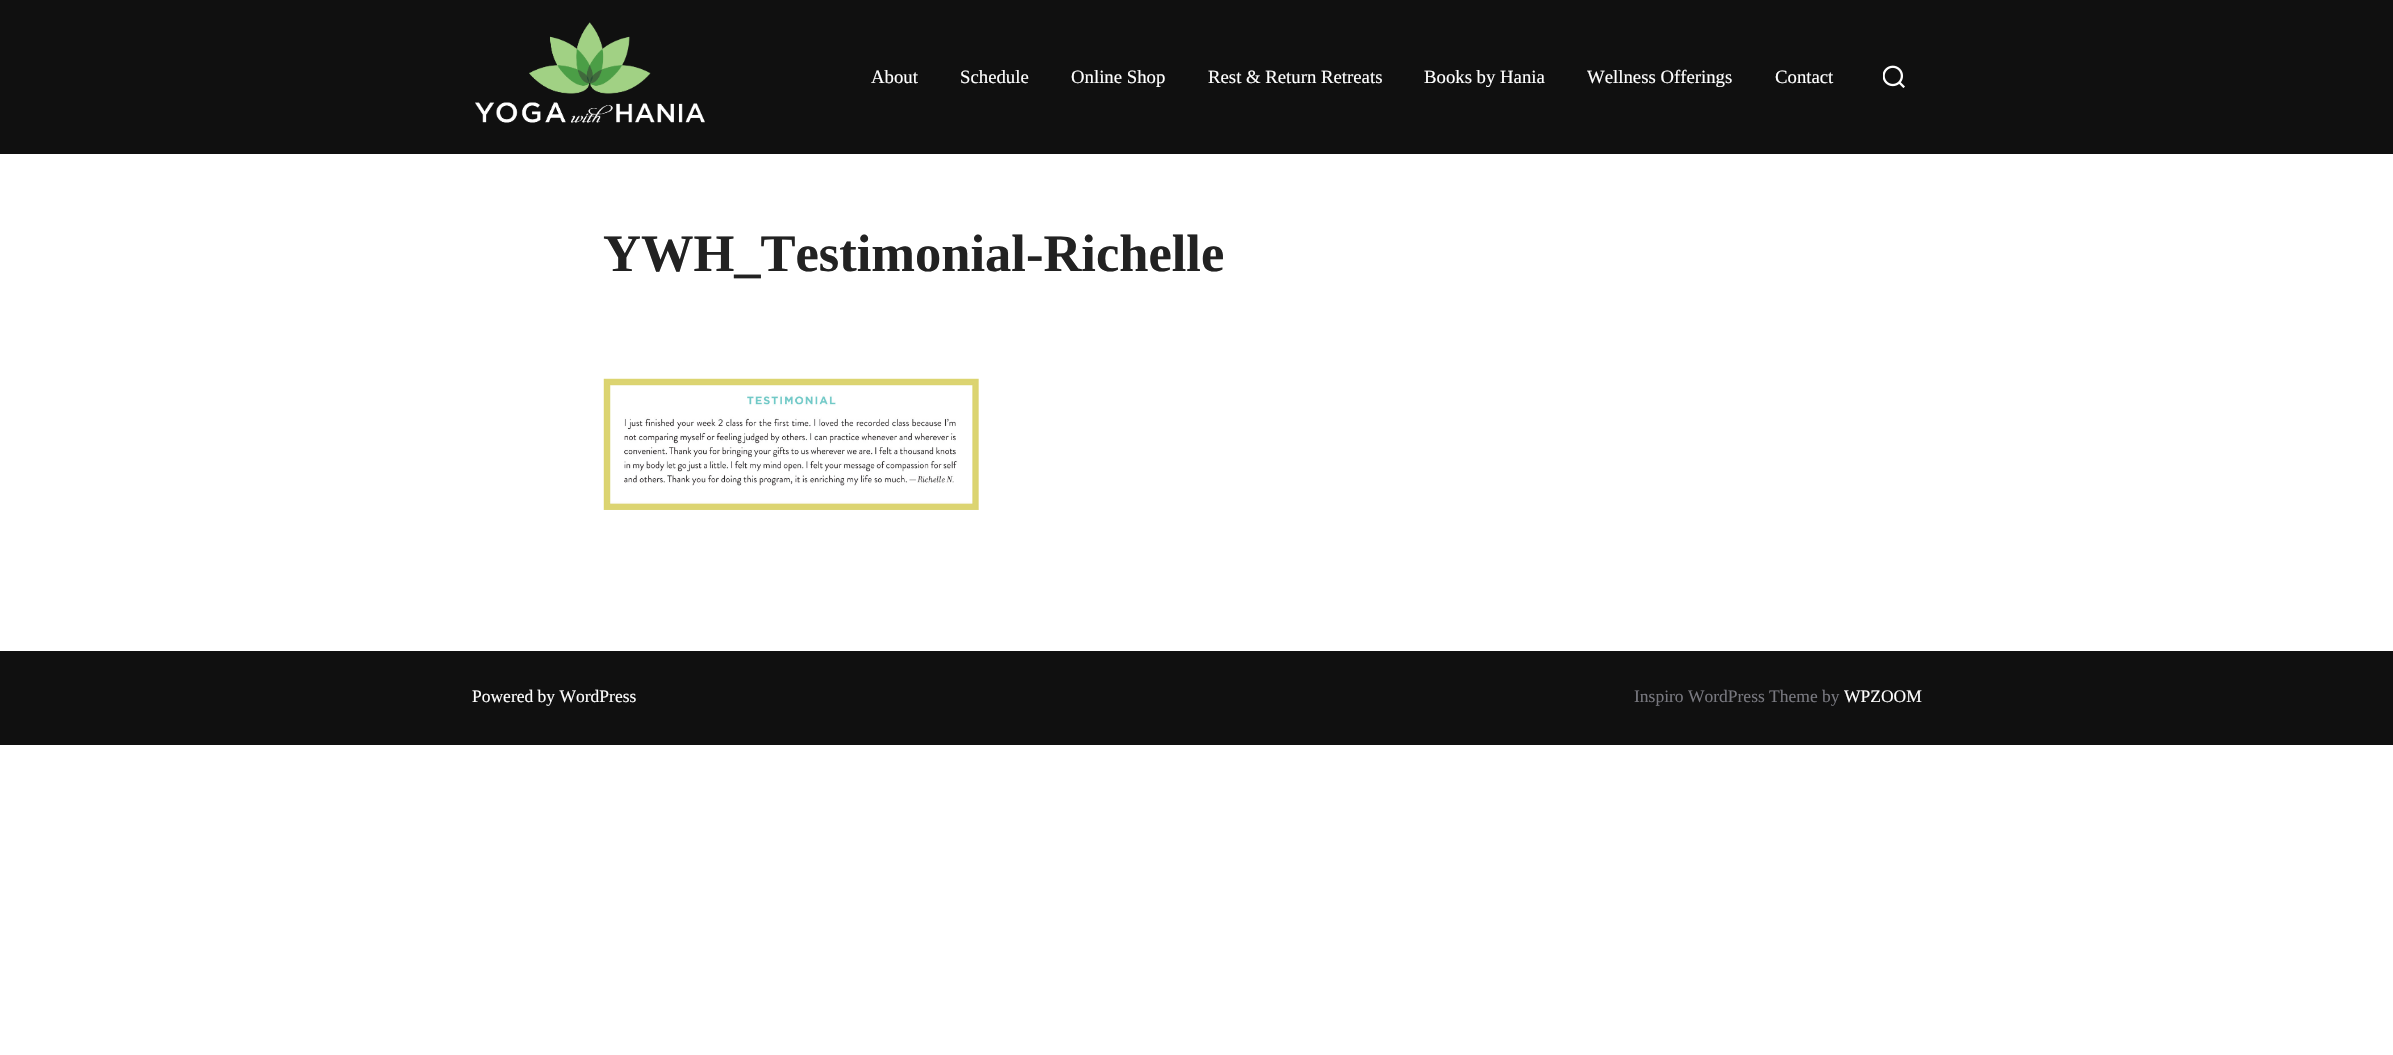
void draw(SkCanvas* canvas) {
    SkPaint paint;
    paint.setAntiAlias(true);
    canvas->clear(0xFFFFFFFF);
    paint.setColor(0xFF101010);
    canvas->drawRect(SkRect::MakeXYWH(0, 0, 2393, 154), paint);
    canvas->drawImageRect(SkImages::DeferredFromEncodedData(SkData::MakeFromFileName("img1.png")), SkRect::MakeXYWH(475, 22, 230, 101), SkSamplingOptions());
    SkFont font1(fontMgr->matchFamilyStyle("Liberation Serif", SkFontStyle::Normal()), 18.75f);
    font1.setSubpixel(true);
    paint.setColor(0xFFFFFFFF);
    canvas->drawString("About", 871, 83, font1, paint);
    canvas->drawString("Schedule", 960, 83, font1, paint);
    canvas->drawString("Online Shop", 1071, 83, font1, paint);
    canvas->drawString("Rest & Return Retreats", 1208, 83, font1, paint);
    canvas->drawString("Books by Hania", 1424, 83, font1, paint);
    canvas->drawString("Wellness Offerings", 1587, 83, font1, paint);
    canvas->drawString("Contact", 1775, 83, font1, paint);
    canvas->drawImageRect(SkImages::DeferredFromEncodedData(SkData::MakeFromFileName("img2.png")), SkRect::MakeXYWH(1883, 65, 22, 23), SkSamplingOptions());
    SkFont font2(fontMgr->matchFamilyStyle("Liberation Serif", SkFontStyle::Bold()), 52.5f);
    font2.setSubpixel(true);
    paint.setColor(0xFF222222);
    canvas->drawString("YWH_Testimonial-Richelle", 603, 271, font2, paint);
    canvas->drawImageRect(SkImages::DeferredFromEncodedData(SkData::MakeFromFileName("img3.png")), SkRect::MakeXYWH(603, 378, 376, 132), SkSamplingOptions());
    paint.setColor(0xFF101010);
    canvas->drawRect(SkRect::MakeXYWH(0, 651, 2393, 94), paint);
    SkFont font3(fontMgr->matchFamilyStyle("Liberation Serif", SkFontStyle::Normal()), 17.5f);
    font3.setSubpixel(true);
    paint.setColor(0xFFFFFFFF);
    canvas->drawString("Powered by WordPress", 472, 702, font3, paint);
    paint.setColor(0xFF78787F);
    canvas->drawString("Inspiro WordPress Theme by", 1634, 702, font3, paint);
    paint.setColor(0xFFFFFFFF);
    canvas->drawString("WPZOOM", 1844, 702, font3, paint);
}
